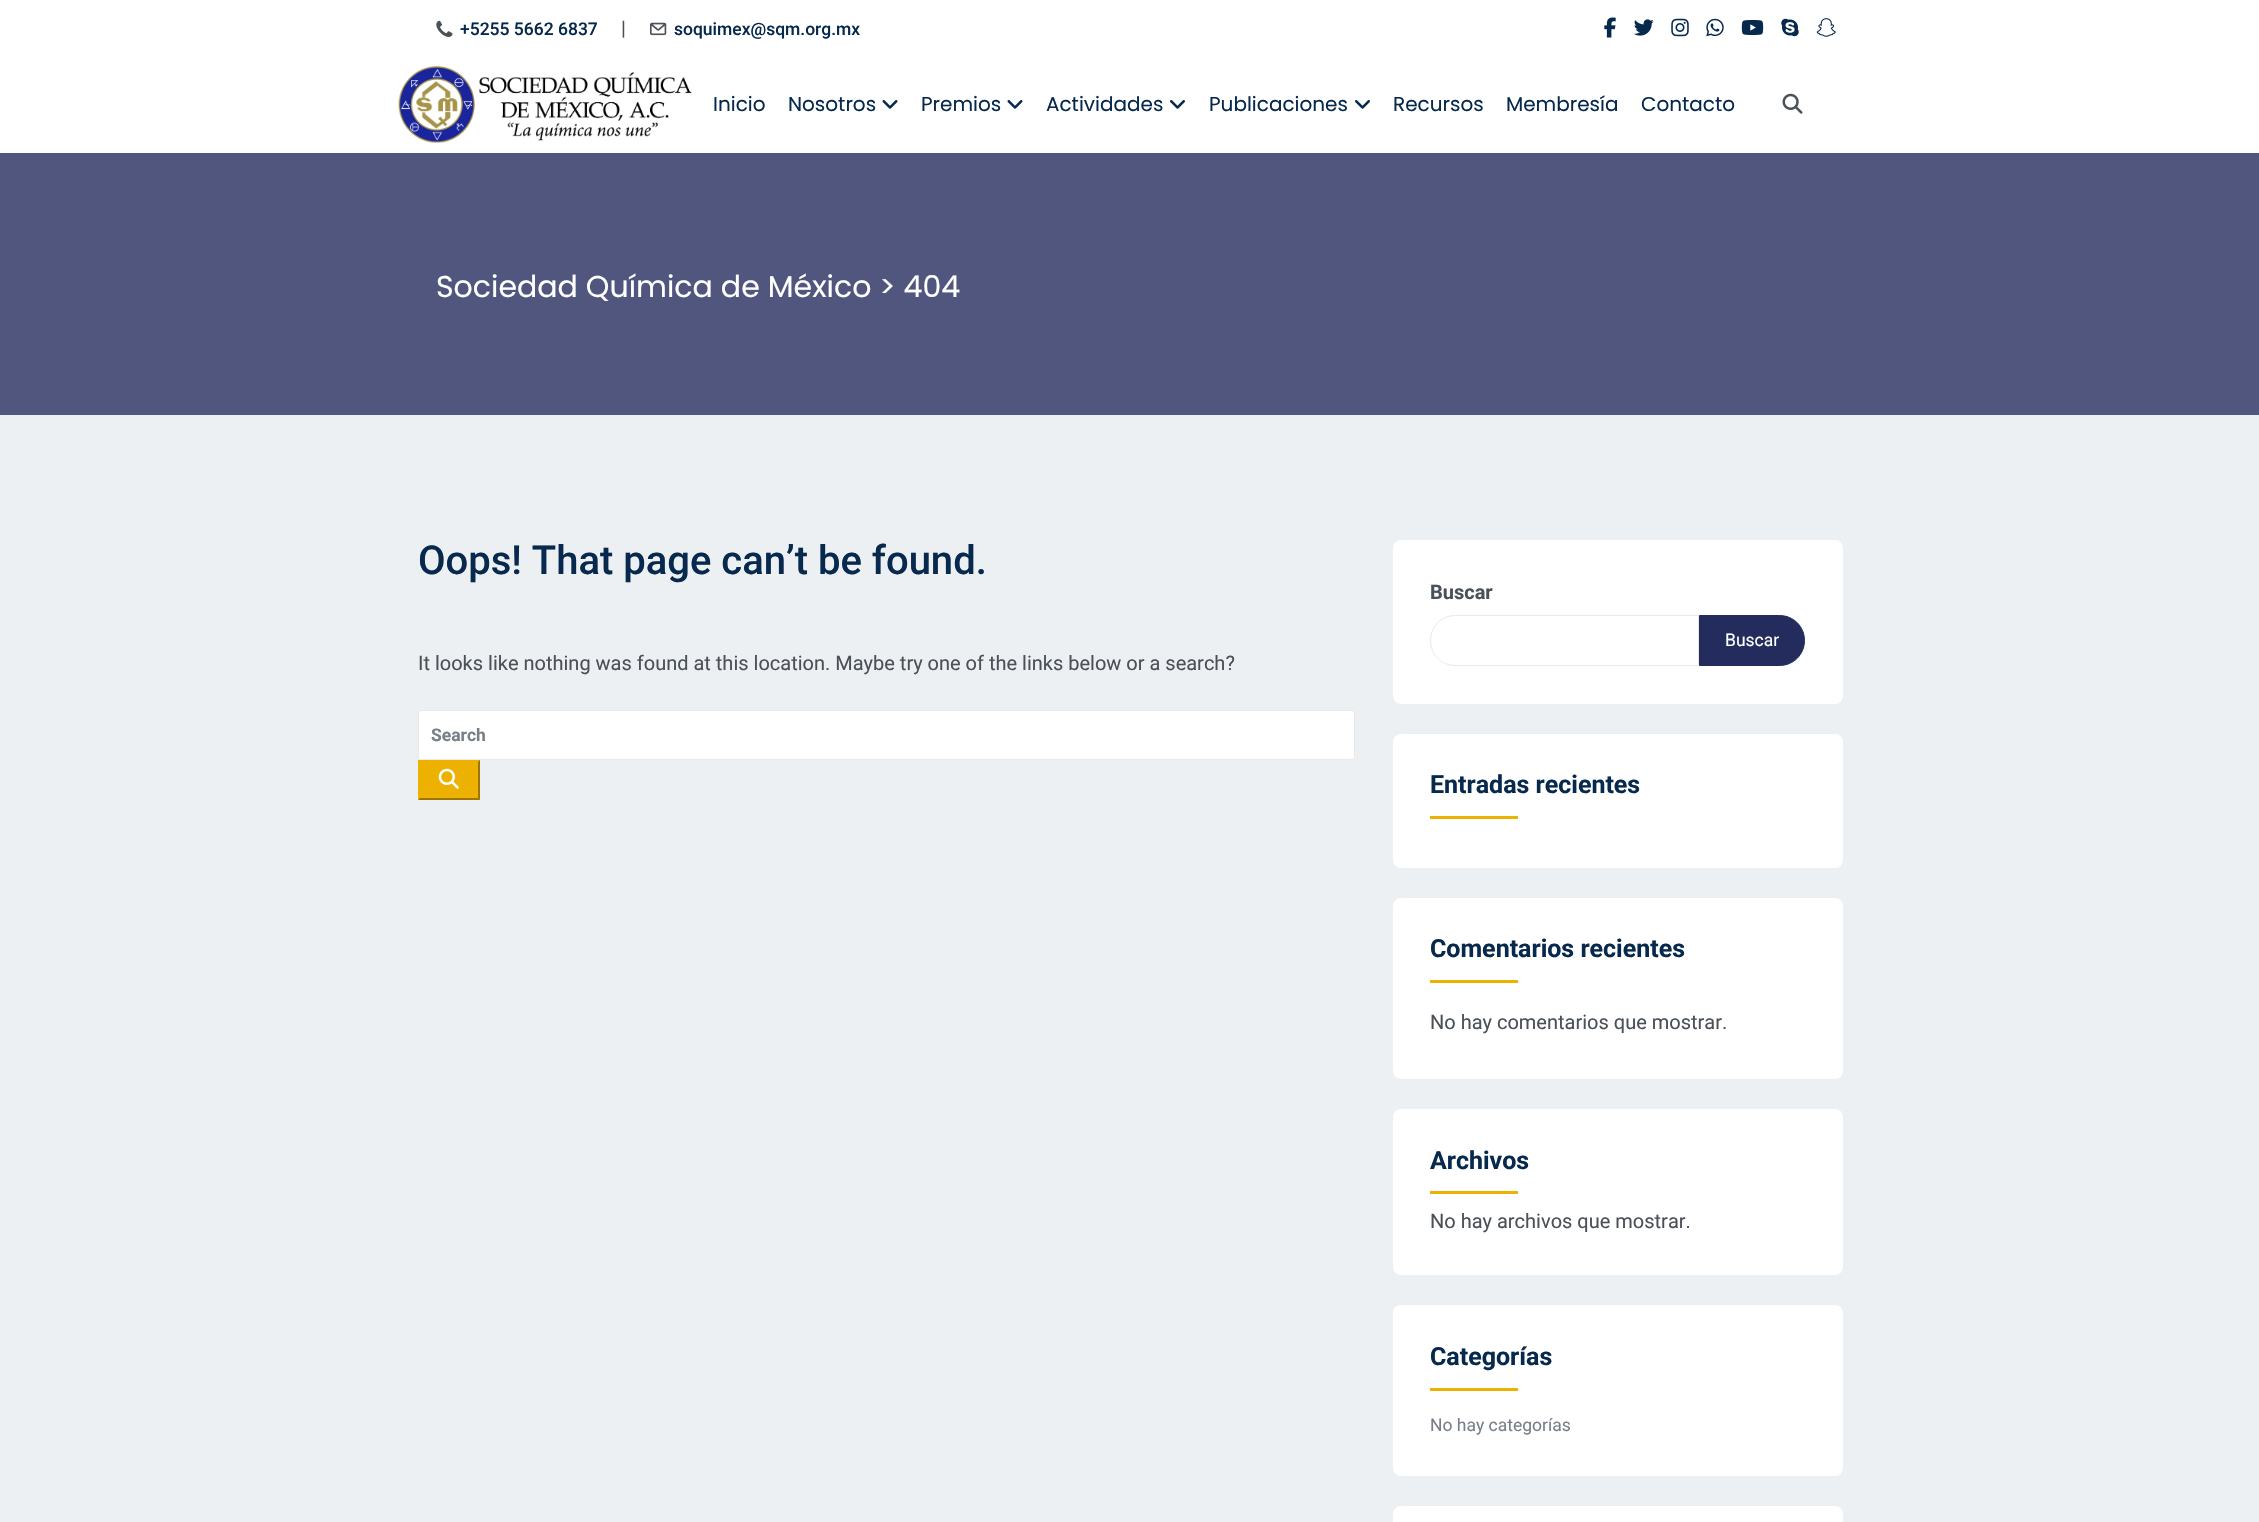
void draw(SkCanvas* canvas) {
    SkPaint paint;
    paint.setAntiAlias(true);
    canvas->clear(0xFFFFFFFF);
    canvas->drawImageRect(SkImages::DeferredFromEncodedData(SkData::MakeFromFileName("img1.png")), SkRect::MakeXYWH(436, 20, 17, 17), SkSamplingOptions());
    SkFont font1(fontMgr->matchFamilyStyle("Roboto", SkFontStyle(500, SkFontStyle::kNormal_Width, SkFontStyle::kUpright_Slant)), 17.5f);
    font1.setSubpixel(true);
    paint.setColor(0xFF07294D);
    canvas->drawString("+5255 5662 6837", 460, 35, font1, paint);
    SkFont font2(fontMgr->matchFamilyStyle("Roboto", SkFontStyle::Normal()), 20);
    font2.setSubpixel(true);
    paint.setColor(0xFF4B5158);
    canvas->drawString("|", 621, 35, font2, paint);
    canvas->drawImageRect(SkImages::DeferredFromEncodedData(SkData::MakeFromFileName("img2.png")), SkRect::MakeXYWH(650, 22, 17, 14), SkSamplingOptions());
    paint.setColor(0xFF07294D);
    canvas->drawString("soquimex@sqm.org.mx", 674, 35, font1, paint);
    canvas->drawImageRect(SkImages::DeferredFromEncodedData(SkData::MakeFromFileName("img3.png")), SkRect::MakeXYWH(1604, 17, 12, 21), SkSamplingOptions());
    canvas->drawImageRect(SkImages::DeferredFromEncodedData(SkData::MakeFromFileName("img4.png")), SkRect::MakeXYWH(1634, 19, 20, 17), SkSamplingOptions());
    canvas->drawImageRect(SkImages::DeferredFromEncodedData(SkData::MakeFromFileName("img5.png")), SkRect::MakeXYWH(1671, 18, 18, 19), SkSamplingOptions());
    canvas->drawImageRect(SkImages::DeferredFromEncodedData(SkData::MakeFromFileName("img6.png")), SkRect::MakeXYWH(1706, 18, 18, 19), SkSamplingOptions());
    canvas->drawImageRect(SkImages::DeferredFromEncodedData(SkData::MakeFromFileName("img7.png")), SkRect::MakeXYWH(1741, 20, 23, 15), SkSamplingOptions());
    canvas->drawImageRect(SkImages::DeferredFromEncodedData(SkData::MakeFromFileName("img8.png")), SkRect::MakeXYWH(1781, 18, 18, 19), SkSamplingOptions());
    canvas->drawImageRect(SkImages::DeferredFromEncodedData(SkData::MakeFromFileName("img9.png")), SkRect::MakeXYWH(1816, 18, 20, 19), SkSamplingOptions());
    canvas->drawImageRect(SkImages::DeferredFromEncodedData(SkData::MakeFromFileName("img10.png")), SkRect::MakeXYWH(398, 66, 294, 77), SkSamplingOptions());
    SkFont font3(fontMgr->matchFamilyStyle("Poppins", SkFontStyle::Normal()), 20);
    font3.setSubpixel(true);
    canvas->drawString("Inicio", 713, 111, font3, paint);
    canvas->drawString("Nosotros", 788, 111, font3, paint);
    canvas->drawImageRect(SkImages::DeferredFromEncodedData(SkData::MakeFromFileName("img11.png")), SkRect::MakeXYWH(882, 100, 16, 9), SkSamplingOptions());
    canvas->drawString("Premios", 921, 111, font3, paint);
    canvas->drawImageRect(SkImages::DeferredFromEncodedData(SkData::MakeFromFileName("img11.png")), SkRect::MakeXYWH(1007, 100, 16, 9), SkSamplingOptions());
    canvas->drawString("Actividades", 1046, 111, font3, paint);
    canvas->drawImageRect(SkImages::DeferredFromEncodedData(SkData::MakeFromFileName("img12.png")), SkRect::MakeXYWH(1170, 100, 15, 9), SkSamplingOptions());
    canvas->drawString("Publicaciones", 1209, 111, font3, paint);
    canvas->drawImageRect(SkImages::DeferredFromEncodedData(SkData::MakeFromFileName("img12.png")), SkRect::MakeXYWH(1355, 100, 15, 9), SkSamplingOptions());
    canvas->drawString("Recursos", 1393, 111, font3, paint);
    canvas->drawString("Membresía", 1506, 111, font3, paint);
    canvas->drawString("Contacto", 1641, 111, font3, paint);
    canvas->drawImageRect(SkImages::DeferredFromEncodedData(SkData::MakeFromFileName("img13.png")), SkRect::MakeXYWH(1782, 93, 21, 21), SkSamplingOptions());
    paint.setColor(0xFF50567E);
    canvas->drawRect(SkRect::MakeXYWH(0, 153, 2259, 262), paint);
    SkFont font4(fontMgr->matchFamilyStyle("Poppins", SkFontStyle::Normal()), 30);
    font4.setSubpixel(true);
    paint.setColor(0xFFFFFFFF);
    canvas->drawString("Sociedad Química de México > 404", 436, 297, font4, paint);
    paint.setColor(0xFFEDF0F2);
    canvas->drawRect(SkRect::MakeXYWH(0, 415, 2259, 1107), paint);
    paint.setColor(0xFFEEEEEE);
    canvas->drawRect(SkRect::MakeXYWH(418, 621, 937, 1), paint);
    SkFont font5(fontMgr->matchFamilyStyle("Roboto", SkFontStyle(500, SkFontStyle::kNormal_Width, SkFontStyle::kUpright_Slant)), 40);
    font5.setSubpixel(true);
    paint.setColor(0xFF07294D);
    canvas->drawString("Oops! That page can’t be found.", 418, 574, font5, paint);
    paint.setColor(0xFF4B5158);
    canvas->drawString("It looks like nothing was found at this location. Maybe try one of the links below or a search?", 418, 670, font2, paint);
    paint.setColor(0xFFFFFFFF);
    canvas->drawRoundRect(SkRect::MakeXYWH(418.5f, 710.5f, 936, 49), 2, 2, paint);
    paint.setStyle(SkPaint::kStroke_Style);
    paint.setStrokeWidth(1);
    paint.setColor(0xFFE8E9EB);
    canvas->drawRoundRect(SkRect::MakeXYWH(418.5f, 710.5f, 936, 49), 2, 2, paint);
    SkFont font6(fontMgr->matchFamilyStyle("Roboto", SkFontStyle::Bold()), 17.5f);
    font6.setSubpixel(true);
    paint.setStyle(SkPaint::kFill_Style);
    paint.setColor(0xFF787F88);
    canvas->drawString("Search", 431, 741, font6, paint);
    paint.setColor(0xFFECB101);
    canvas->drawRect(SkRect::MakeXYWH(418, 760, 62, 40), paint);
    paint.setColor(0xFF9D7601);
    canvas->drawPath(SkPathBuilder().moveTo(480, 760).lineTo(480, 800).lineTo(478, 798).lineTo(478, 762).close().detach(), paint);
    canvas->drawPath(SkPathBuilder().moveTo(480, 800).lineTo(418, 800).lineTo(420, 798).lineTo(478, 798).close().detach(), paint);
    paint.setColor(0xFFECB101);
    canvas->drawPath(SkPathBuilder().moveTo(418, 800).lineTo(418, 760).lineTo(420, 762).lineTo(420, 798).close().detach(), paint);
    canvas->drawImageRect(SkImages::DeferredFromEncodedData(SkData::MakeFromFileName("img14.png")), SkRect::MakeXYWH(438, 768, 21, 21), SkSamplingOptions());
    paint.setColor(0xFFFFFFFF);
    canvas->drawRoundRect(SkRect::MakeXYWH(1393, 540, 450, 164), 8, 8, paint);
    SkFont font7(fontMgr->matchFamilyStyle("Roboto", SkFontStyle::Bold()), 20);
    font7.setSubpixel(true);
    paint.setColor(0xFF4B5158);
    canvas->drawString("Buscar", 1430, 599, font7, paint);
    paint.setStyle(SkPaint::kStroke_Style);
    paint.setColor(0xFFE8E9EB);
    canvas->drawPath(SkPathBuilder().moveTo(1455.5f, 615.5f).lineTo(1698, 615.5f).cubicTo(1698.5f, 615.5f, 1698.5f, 615.5f, 1698.5f, 616).lineTo(1698.5f, 665).cubicTo(1698.5f, 665.5f, 1698.5f, 665.5f, 1698, 665.5f).lineTo(1455.5f, 665.5f).cubicTo(1441.5f, 665.5f, 1430.5f, 654.5f, 1430.5f, 640.5f).cubicTo(1430.5f, 626.5f, 1441.5f, 615.5f, 1455.5f, 615.5f).close().detach(), paint);
    paint.setStyle(SkPaint::kFill_Style);
    paint.setColor(0xFF242C5E);
    canvas->drawPath(SkPathBuilder().moveTo(1699.5f, 615.5f).lineTo(1779.5f, 615.5f).cubicTo(1793.5f, 615.5f, 1804.5f, 626.5f, 1804.5f, 640.5f).cubicTo(1804.5f, 654.5f, 1793.5f, 665.5f, 1779.5f, 665.5f).lineTo(1699.5f, 665.5f).close().detach(), paint);
    paint.setStyle(SkPaint::kStroke_Style);
    canvas->drawPath(SkPathBuilder().moveTo(1699.5f, 615.5f).lineTo(1779.5f, 615.5f).cubicTo(1793.5f, 615.5f, 1804.5f, 626.5f, 1804.5f, 640.5f).cubicTo(1804.5f, 654.5f, 1793.5f, 665.5f, 1779.5f, 665.5f).lineTo(1699.5f, 665.5f).close().detach(), paint);
    SkFont font8(fontMgr->matchFamilyStyle("Roboto", SkFontStyle::Normal()), 17.5f);
    font8.setSubpixel(true);
    paint.setStyle(SkPaint::kFill_Style);
    paint.setColor(0xFFFFFFFF);
    canvas->drawString("Buscar", 1725, 646, font8, paint);
    canvas->drawRoundRect(SkRect::MakeXYWH(1393, 734, 450, 134), 8, 8, paint);
    SkFont font9(fontMgr->matchFamilyStyle("Roboto", SkFontStyle::Bold()), 25);
    font9.setSubpixel(true);
    paint.setColor(0xFF07294D);
    canvas->drawString("Entradas recientes", 1430, 793, font9, paint);
    paint.setColor(0xFFECB101);
    canvas->drawRect(SkRect::MakeXYWH(1430, 816, 88, 3), paint);
    paint.setColor(0xFFFFFFFF);
    canvas->drawRoundRect(SkRect::MakeXYWH(1393, 898, 450, 181), 8, 8, paint);
    paint.setColor(0xFF07294D);
    canvas->drawString("Comentarios recientes", 1430, 957, font9, paint);
    paint.setColor(0xFFECB101);
    canvas->drawRect(SkRect::MakeXYWH(1430, 980, 88, 3), paint);
    paint.setColor(0xFF4B5158);
    canvas->drawString("No hay comentarios que mostrar.", 1430, 1029, font2, paint);
    paint.setColor(0xFFFFFFFF);
    canvas->drawRoundRect(SkRect::MakeXYWH(1393, 1109, 450, 166), 8, 8, paint);
    paint.setColor(0xFF07294D);
    canvas->drawString("Archivos", 1430, 1169, font9, paint);
    paint.setColor(0xFFECB101);
    canvas->drawRect(SkRect::MakeXYWH(1430, 1191, 88, 3), paint);
    paint.setColor(0xFF4B5158);
    canvas->drawString("No hay archivos que mostrar.", 1430, 1228, font2, paint);
    paint.setColor(0xFFFFFFFF);
    canvas->drawRoundRect(SkRect::MakeXYWH(1393, 1305, 450, 171), 8, 8, paint);
    paint.setColor(0xFF07294D);
    canvas->drawString("Categorías", 1430, 1365, font9, paint);
    paint.setColor(0xFFECB101);
    canvas->drawRect(SkRect::MakeXYWH(1430, 1388, 88, 3), paint);
    paint.setColor(0xFF787F88);
    canvas->drawString("No hay categorías", 1430, 1431, font8, paint);
    paint.setColor(0xFFFFFFFF);
    canvas->drawRoundRect(SkRect::MakeXYWH(1393, 1506, 450, 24), 8, 8, paint);
}
